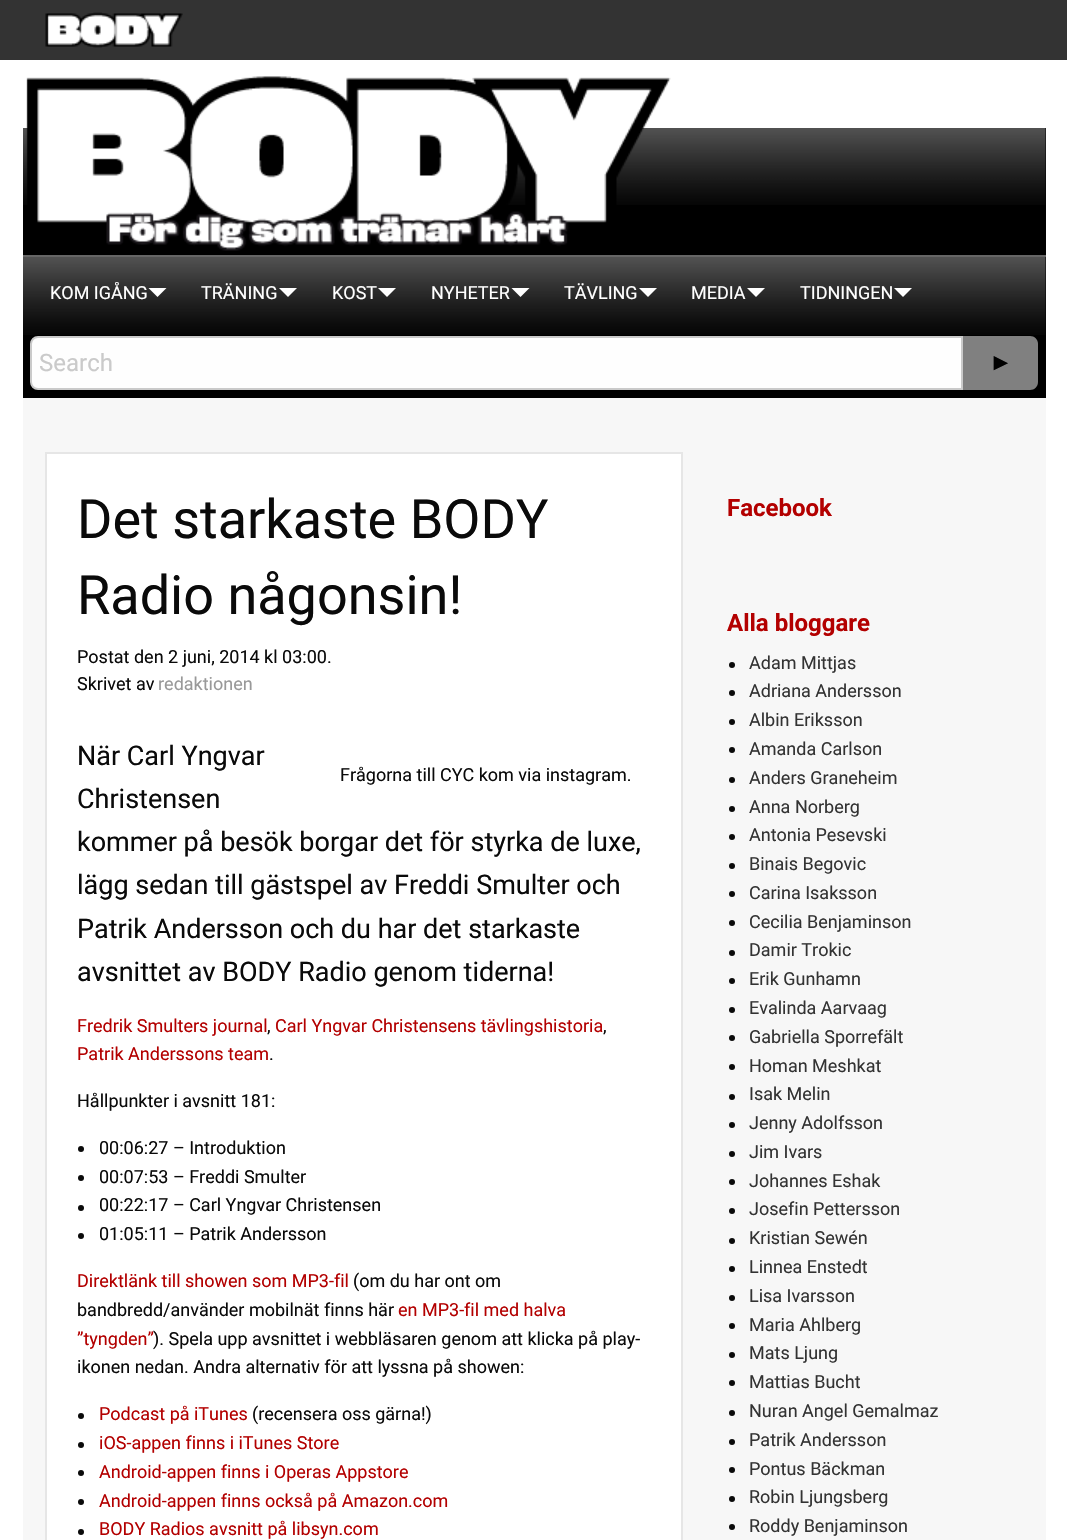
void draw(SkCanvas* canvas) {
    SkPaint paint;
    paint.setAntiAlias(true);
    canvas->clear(0xFFFFFFFF);
    paint.setColor(0xFF333333);
    canvas->drawRect(SkRect::MakeXYWH(0, 0, 1067, 60), paint);
    canvas->drawImageRect(SkImages::DeferredFromEncodedData(SkData::MakeFromFileName("img1.png")), SkRect::MakeXYWH(45, 12, 138, 36), SkSamplingOptions());
    paint.setColor(0xFF000000);
    canvas->drawRect(SkRect::MakeXYWH(23, 128, 1023, 127), paint);
    canvas->drawImageRect(SkImages::DeferredFromEncodedData(SkData::MakeFromFileName("img2.png")), SkRect::MakeXYWH(23, 128, 1023, 77), SkSamplingOptions());
    canvas->drawImageRect(SkImages::DeferredFromEncodedData(SkData::MakeFromFileName("img3.png")), SkRect::MakeXYWH(26, 76, 645, 175), SkSamplingOptions());
    canvas->drawRect(SkRect::MakeXYWH(23, 257, 1023, 141), paint);
    canvas->drawImageRect(SkImages::DeferredFromEncodedData(SkData::MakeFromFileName("img4.png")), SkRect::MakeXYWH(23, 257, 1023, 78), SkSamplingOptions());
    paint.setColor(0xFF666666);
    canvas->drawRect(SkRect::MakeXYWH(23, 255, 1023, 2), paint);
    SkFont font1(fontMgr->matchFamilyStyle("Roboto", SkFontStyle::Normal()), 18);
    font1.setSubpixel(true);
    paint.setColor(0xFFFFFFFF);
    canvas->drawString("KOM IGÅNG", 50, 299, font1, paint);
    canvas->drawPath(SkPathBuilder().moveTo(148.5f, 288).lineTo(166.5f, 288).lineTo(157.5f, 297).close().detach(), paint);
    canvas->drawString("TRÄNING", 201, 299, font1, paint);
    canvas->drawPath(SkPathBuilder().moveTo(279, 288).lineTo(297, 288).lineTo(288, 297).close().detach(), paint);
    canvas->drawString("KOST", 332, 299, font1, paint);
    canvas->drawPath(SkPathBuilder().moveTo(378, 288).lineTo(396, 288).lineTo(387, 297).close().detach(), paint);
    canvas->drawString("NYHETER", 431, 299, font1, paint);
    canvas->drawPath(SkPathBuilder().moveTo(511.5f, 288).lineTo(529.5f, 288).lineTo(520.5f, 297).close().detach(), paint);
    canvas->drawString("TÄVLING", 564, 299, font1, paint);
    canvas->drawPath(SkPathBuilder().moveTo(639, 288).lineTo(657, 288).lineTo(648, 297).close().detach(), paint);
    canvas->drawString("MEDIA", 691, 299, font1, paint);
    canvas->drawPath(SkPathBuilder().moveTo(747, 288).lineTo(765, 288).lineTo(756, 297).close().detach(), paint);
    canvas->drawString("TIDNINGEN", 800, 299, font1, paint);
    canvas->drawPath(SkPathBuilder().moveTo(894, 288).lineTo(912, 288).lineTo(903, 297).close().detach(), paint);
    paint.setColor(0xFFFEFEFE);
    canvas->drawPath(SkPathBuilder().moveTo(38, 337).lineTo(962, 337).lineTo(962, 389).lineTo(38, 389).cubicTo(34, 389, 31, 386, 31, 382).lineTo(31, 344).cubicTo(31, 340, 34, 337, 38, 337).close().detach(), paint);
    paint.setStyle(SkPaint::kStroke_Style);
    paint.setStrokeWidth(2);
    paint.setColor(0xFFCACACA);
    canvas->drawPath(SkPathBuilder().moveTo(38, 337).lineTo(962, 337).lineTo(962, 389).lineTo(38, 389).cubicTo(34, 389, 31, 386, 31, 382).lineTo(31, 344).cubicTo(31, 340, 34, 337, 38, 337).close().detach(), paint);
    SkFont font2(fontMgr->matchFamilyStyle("Roboto", SkFontStyle::Normal()), 24);
    font2.setSubpixel(true);
    paint.setStyle(SkPaint::kFill_Style);
    canvas->drawString("Search", 39, 371, font2, paint);
    paint.setColor(0xFF808080);
    canvas->drawPath(SkPathBuilder().moveTo(963, 336).lineTo(1030, 336).cubicTo(1034.5f, 336, 1038, 339.5f, 1038, 344).lineTo(1038, 382).cubicTo(1038, 386.5f, 1034.5f, 390, 1030, 390).lineTo(963, 390).close().detach(), paint);
    SkFont font3(fontMgr->matchFamilyStyle("Liberation Sans", SkFontStyle::Normal()), 24);
    font3.setSubpixel(true);
    paint.setColor(0xFF000000);
    canvas->drawString("►", 989, 370, font3, paint);
    paint.setColor(0xFFF7F7F7);
    canvas->drawRect(SkRect::MakeXYWH(23, 398, 1023, 1142), paint);
    paint.setColor(0xFFFFFFFF);
    canvas->drawRect(SkRect::MakeXYWH(46, 453, 636, 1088), paint);
    paint.setStyle(SkPaint::kStroke_Style);
    paint.setColor(0xFFE6E6E6);
    canvas->drawRect(SkRect::MakeXYWH(46, 453, 636, 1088), paint);
    SkFont font4(fontMgr->matchFamilyStyle("Roboto", SkFontStyle::Normal()), 54);
    font4.setSubpixel(true);
    paint.setStyle(SkPaint::kFill_Style);
    paint.setColor(0xFF0A0A0A);
    canvas->drawString("Det starkaste BODY", 77, 538, font4, paint);
    canvas->drawString("Radio någonsin!", 77, 614, font4, paint);
    canvas->drawString("Postat den 2 juni, 2014 kl 03:00.", 77, 663, font1, paint);
    canvas->drawString("Skrivet av", 77, 690, font1, paint);
    paint.setColor(0xFF999999);
    canvas->drawString("redaktionen", 158, 690, font1, paint);
    SkFont font5(fontMgr->matchFamilyStyle("Roboto", SkFontStyle::Normal()), 27);
    font5.setSubpixel(true);
    paint.setColor(0xFF0A0A0A);
    canvas->drawString("När Carl Yngvar", 77, 765, font5, paint);
    canvas->drawString("Christensen", 77, 808, font5, paint);
    canvas->drawString("kommer på besök borgar det för styrka de luxe,", 77, 851, font5, paint);
    canvas->drawString("lägg sedan till gästspel av Freddi Smulter och", 77, 894, font5, paint);
    canvas->drawString("Patrik Andersson och du har det starkaste", 77, 938, font5, paint);
    canvas->drawString("avsnittet av BODY Radio genom tiderna!", 77, 981, font5, paint);
    canvas->drawString("Frågorna till CYC kom via instagram.", 340, 781, font1, paint);
    paint.setColor(0xFFB30000);
    canvas->drawString("Fredrik Smulters journal", 77, 1032, font1, paint);
    paint.setColor(0xFF0A0A0A);
    canvas->drawString(",", 267, 1032, font1, paint);
    paint.setColor(0xFFB30000);
    canvas->drawString("Carl Yngvar Christensens tävlingshistoria", 275, 1032, font1, paint);
    paint.setColor(0xFF0A0A0A);
    canvas->drawString(",", 603, 1032, font1, paint);
    paint.setColor(0xFFB30000);
    canvas->drawString("Patrik Anderssons team", 77, 1060, font1, paint);
    paint.setColor(0xFF0A0A0A);
    canvas->drawString(".", 269, 1060, font1, paint);
    canvas->drawString("Hållpunkter i avsnitt 181:", 77, 1107, font1, paint);
    canvas->drawCircle(81, 1149, 3, paint);
    canvas->drawString("00:06:27 – Introduktion", 99, 1154, font1, paint);
    canvas->drawCircle(81, 1178, 3, paint);
    canvas->drawString("00:07:53 – Freddi Smulter", 99, 1183, font1, paint);
    canvas->drawCircle(81, 1208, 3, paint);
    canvas->drawString("00:22:17 – Carl Yngvar Christensen", 99, 1211, font1, paint);
    canvas->drawCircle(81, 1236, 3, paint);
    canvas->drawString("01:05:11 – Patrik Andersson", 99, 1240, font1, paint);
    paint.setColor(0xFFB30000);
    canvas->drawString("Direktlänk till showen som MP3-fil", 77, 1287, font1, paint);
    paint.setColor(0xFF0A0A0A);
    canvas->drawString("(om du har ont om", 353, 1287, font1, paint);
    canvas->drawString("bandbredd/använder mobilnät finns här", 77, 1316, font1, paint);
    paint.setColor(0xFFB30000);
    canvas->drawString("en MP3-fil med halva", 398, 1316, font1, paint);
    canvas->drawString("”tyngden”", 77, 1345, font1, paint);
    paint.setColor(0xFF0A0A0A);
    canvas->drawString("). Spela upp avsnittet i webbläsaren genom att klicka på play-", 153, 1345, font1, paint);
    canvas->drawString("ikonen nedan. Andra alternativ för att lyssna på showen:", 77, 1373, font1, paint);
    canvas->drawCircle(81, 1416, 3, paint);
    paint.setColor(0xFFB30000);
    canvas->drawString("Podcast på iTunes", 99, 1420, font1, paint);
    paint.setColor(0xFF0A0A0A);
    canvas->drawString("(recensera oss gärna!)", 252, 1420, font1, paint);
    canvas->drawCircle(81, 1445, 3, paint);
    paint.setColor(0xFFB30000);
    canvas->drawString("iOS-appen finns i iTunes Store", 99, 1449, font1, paint);
    paint.setColor(0xFF0A0A0A);
    canvas->drawCircle(81, 1473, 3, paint);
    paint.setColor(0xFFB30000);
    canvas->drawString("Android-appen finns i Operas Appstore", 99, 1478, font1, paint);
    paint.setColor(0xFF0A0A0A);
    canvas->drawCircle(81, 1502, 3, paint);
    paint.setColor(0xFFB30000);
    canvas->drawString("Android-appen finns också på Amazon.com", 99, 1507, font1, paint);
    paint.setColor(0xFF0A0A0A);
    canvas->drawCircle(81, 1532, 3, paint);
    paint.setColor(0xFFB30000);
    canvas->drawString("BODY Radios avsnitt på libsyn.com", 99, 1535, font1, paint);
    SkFont font6(fontMgr->matchFamilyStyle("Roboto", SkFontStyle::Bold()), 24);
    font6.setSubpixel(true);
    canvas->drawString("Facebook", 727, 516, font6, paint);
    canvas->drawString("Alla bloggare", 727, 631, font6, paint);
    paint.setColor(0xFF0A0A0A);
    canvas->drawCircle(732, 665, 3, paint);
    paint.setColor(0xFF333333);
    canvas->drawString("Adam Mittjas", 749, 669, font1, paint);
    paint.setColor(0xFF0A0A0A);
    canvas->drawCircle(732, 693, 3, paint);
    paint.setColor(0xFF333333);
    canvas->drawString("Adriana Andersson", 749, 697, font1, paint);
    paint.setColor(0xFF0A0A0A);
    canvas->drawCircle(732, 722, 3, paint);
    paint.setColor(0xFF333333);
    canvas->drawString("Albin Eriksson", 749, 726, font1, paint);
    paint.setColor(0xFF0A0A0A);
    canvas->drawCircle(732, 750, 3, paint);
    paint.setColor(0xFF333333);
    canvas->drawString("Amanda Carlson", 749, 755, font1, paint);
    paint.setColor(0xFF0A0A0A);
    canvas->drawCircle(732, 780, 3, paint);
    paint.setColor(0xFF333333);
    canvas->drawString("Anders Graneheim", 749, 784, font1, paint);
    paint.setColor(0xFF0A0A0A);
    canvas->drawCircle(732, 809, 3, paint);
    paint.setColor(0xFF333333);
    canvas->drawString("Anna Norberg", 749, 813, font1, paint);
    paint.setColor(0xFF0A0A0A);
    canvas->drawCircle(732, 837, 3, paint);
    paint.setColor(0xFF333333);
    canvas->drawString("Antonia Pesevski", 749, 841, font1, paint);
    paint.setColor(0xFF0A0A0A);
    canvas->drawCircle(732, 866, 3, paint);
    paint.setColor(0xFF333333);
    canvas->drawString("Binais Begovic", 749, 870, font1, paint);
    paint.setColor(0xFF0A0A0A);
    canvas->drawCircle(732, 894, 3, paint);
    paint.setColor(0xFF333333);
    canvas->drawString("Carina Isaksson", 749, 899, font1, paint);
    paint.setColor(0xFF0A0A0A);
    canvas->drawCircle(732, 923, 3, paint);
    paint.setColor(0xFF333333);
    canvas->drawString("Cecilia Benjaminson", 749, 928, font1, paint);
    paint.setColor(0xFF0A0A0A);
    canvas->drawCircle(732, 953, 3, paint);
    paint.setColor(0xFF333333);
    canvas->drawString("Damir Trokic", 749, 956, font1, paint);
    paint.setColor(0xFF0A0A0A);
    canvas->drawCircle(732, 981, 3, paint);
    paint.setColor(0xFF333333);
    canvas->drawString("Erik Gunhamn", 749, 985, font1, paint);
    paint.setColor(0xFF0A0A0A);
    canvas->drawCircle(732, 1010, 3, paint);
    paint.setColor(0xFF333333);
    canvas->drawString("Evalinda Aarvaag", 749, 1014, font1, paint);
    paint.setColor(0xFF0A0A0A);
    canvas->drawCircle(732, 1038, 3, paint);
    paint.setColor(0xFF333333);
    canvas->drawString("Gabriella Sporrefält", 749, 1043, font1, paint);
    paint.setColor(0xFF0A0A0A);
    canvas->drawCircle(732, 1067, 3, paint);
    paint.setColor(0xFF333333);
    canvas->drawString("Homan Meshkat", 749, 1072, font1, paint);
    paint.setColor(0xFF0A0A0A);
    canvas->drawCircle(732, 1097, 3, paint);
    paint.setColor(0xFF333333);
    canvas->drawString("Isak Melin", 749, 1100, font1, paint);
    paint.setColor(0xFF0A0A0A);
    canvas->drawCircle(732, 1125, 3, paint);
    paint.setColor(0xFF333333);
    canvas->drawString("Jenny Adolfsson", 749, 1129, font1, paint);
    paint.setColor(0xFF0A0A0A);
    canvas->drawCircle(732, 1154, 3, paint);
    paint.setColor(0xFF333333);
    canvas->drawString("Jim Ivars", 749, 1158, font1, paint);
    paint.setColor(0xFF0A0A0A);
    canvas->drawCircle(732, 1182, 3, paint);
    paint.setColor(0xFF333333);
    canvas->drawString("Johannes Eshak", 749, 1187, font1, paint);
    paint.setColor(0xFF0A0A0A);
    canvas->drawCircle(732, 1211, 3, paint);
    paint.setColor(0xFF333333);
    canvas->drawString("Josefin Pettersson", 749, 1215, font1, paint);
    paint.setColor(0xFF0A0A0A);
    canvas->drawCircle(732, 1241, 3, paint);
    paint.setColor(0xFF333333);
    canvas->drawString("Kristian Sewén", 749, 1244, font1, paint);
    paint.setColor(0xFF0A0A0A);
    canvas->drawCircle(732, 1269, 3, paint);
    paint.setColor(0xFF333333);
    canvas->drawString("Linnea Enstedt", 749, 1273, font1, paint);
    paint.setColor(0xFF0A0A0A);
    canvas->drawCircle(732, 1298, 3, paint);
    paint.setColor(0xFF333333);
    canvas->drawString("Lisa Ivarsson", 749, 1302, font1, paint);
    paint.setColor(0xFF0A0A0A);
    canvas->drawCircle(732, 1326, 3, paint);
    paint.setColor(0xFF333333);
    canvas->drawString("Maria Ahlberg", 749, 1331, font1, paint);
    paint.setColor(0xFF0A0A0A);
    canvas->drawCircle(732, 1355, 3, paint);
    paint.setColor(0xFF333333);
    canvas->drawString("Mats Ljung", 749, 1359, font1, paint);
    paint.setColor(0xFF0A0A0A);
    canvas->drawCircle(732, 1383, 3, paint);
    paint.setColor(0xFF333333);
    canvas->drawString("Mattias Bucht", 749, 1388, font1, paint);
    paint.setColor(0xFF0A0A0A);
    canvas->drawCircle(732, 1413, 3, paint);
    paint.setColor(0xFF333333);
    canvas->drawString("Nuran Angel Gemalmaz", 749, 1417, font1, paint);
    paint.setColor(0xFF0A0A0A);
    canvas->drawCircle(732, 1442, 3, paint);
    paint.setColor(0xFF333333);
    canvas->drawString("Patrik Andersson", 749, 1446, font1, paint);
    paint.setColor(0xFF0A0A0A);
    canvas->drawCircle(732, 1470, 3, paint);
    paint.setColor(0xFF333333);
    canvas->drawString("Pontus Bäckman", 749, 1475, font1, paint);
    paint.setColor(0xFF0A0A0A);
    canvas->drawCircle(732, 1499, 3, paint);
    paint.setColor(0xFF333333);
    canvas->drawString("Robin Ljungsberg", 749, 1503, font1, paint);
    paint.setColor(0xFF0A0A0A);
    canvas->drawCircle(732, 1527, 3, paint);
    paint.setColor(0xFF333333);
    canvas->drawString("Roddy Benjaminson", 749, 1532, font1, paint);
}
